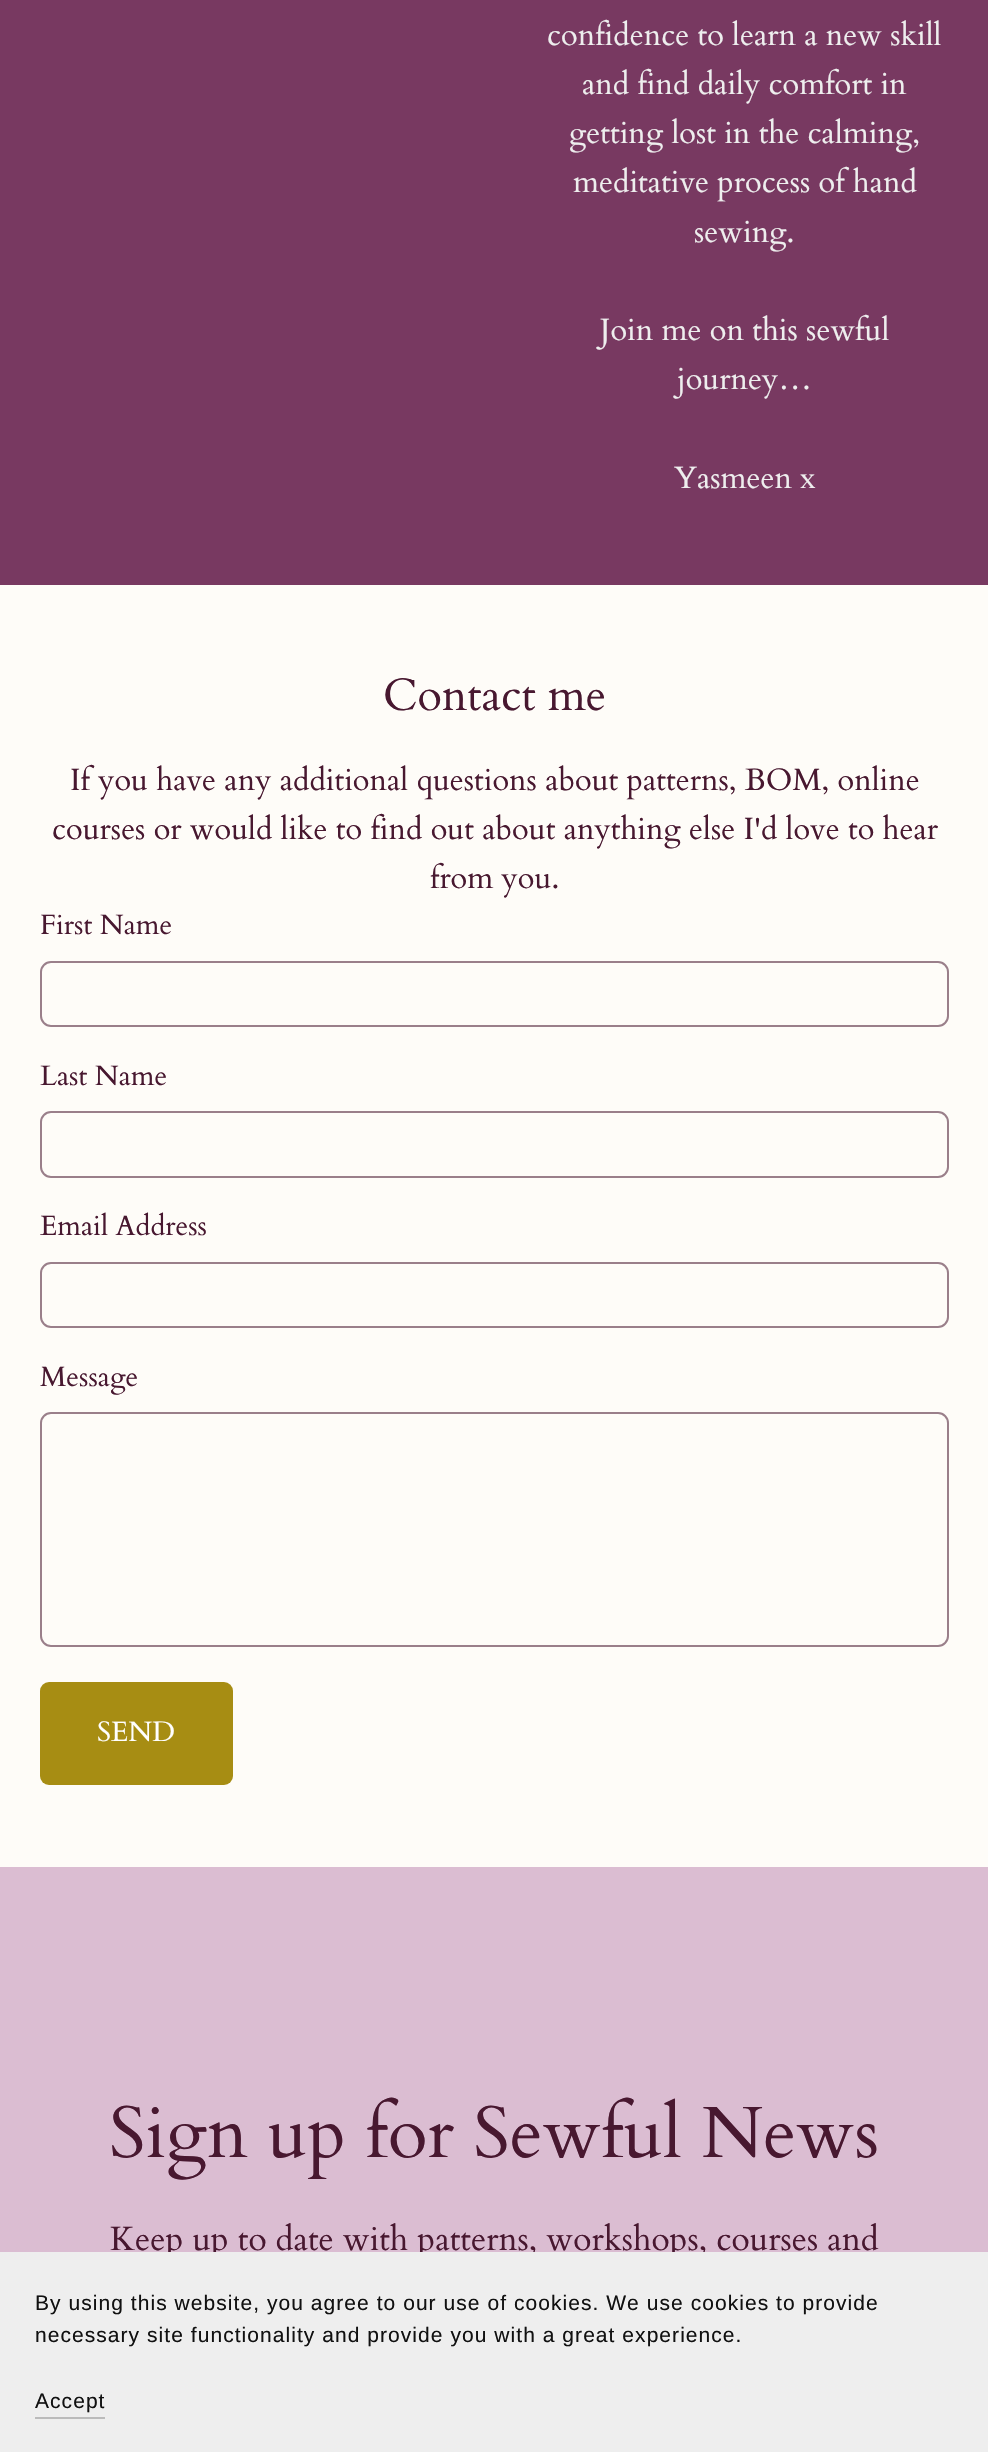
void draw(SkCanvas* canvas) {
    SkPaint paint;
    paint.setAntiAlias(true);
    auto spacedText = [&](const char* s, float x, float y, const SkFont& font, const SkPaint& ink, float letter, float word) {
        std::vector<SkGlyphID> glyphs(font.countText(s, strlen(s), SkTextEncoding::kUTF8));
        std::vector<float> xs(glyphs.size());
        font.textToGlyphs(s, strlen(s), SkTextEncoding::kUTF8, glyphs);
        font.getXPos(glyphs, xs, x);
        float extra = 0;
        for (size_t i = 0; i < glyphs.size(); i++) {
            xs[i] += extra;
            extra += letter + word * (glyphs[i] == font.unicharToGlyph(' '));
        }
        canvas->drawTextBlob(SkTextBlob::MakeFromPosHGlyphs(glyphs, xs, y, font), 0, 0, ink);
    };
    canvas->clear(0xFFFEFCF8);
    paint.setColor(0xFF783961);
    canvas->drawRect(SkRect::MakeXYWH(0, 0, 988, 585), paint);
    SkFont font1(fontMgr->matchFamilyStyle("Cardo", SkFontStyle::Normal()), 30.8f);
    font1.setSubpixel(true);
    paint.setColor(0xFFEEEEEE);
    canvas->drawString("confidence to learn a new skill", 547, 45, font1, paint);
    canvas->drawString("and find daily comfort in", 582, 94, font1, paint);
    canvas->drawString("getting lost in the calming,", 569, 143, font1, paint);
    canvas->drawString("meditative process of hand", 573, 192, font1, paint);
    canvas->drawString("sewing.", 694, 242, font1, paint);
    canvas->drawString("Join me on this sewful", 600, 340, font1, paint);
    canvas->drawString("journey…", 677, 389, font1, paint);
    canvas->drawString("Yasmeen x", 674, 488, font1, paint);
    SkFont font2(fontMgr->matchFamilyStyle("Cardo", SkFontStyle::Normal()), 45);
    font2.setSubpixel(true);
    paint.setColor(0xFF481830);
    canvas->drawString("Contact me", 383, 710, font2, paint);
    canvas->drawString("If you have any additional questions about patterns, BOM, online", 70, 790, font1, paint);
    canvas->drawString("courses or would like to find out about anything else I'd love to hear", 52, 839, font1, paint);
    canvas->drawString("from you.", 430, 888, font1, paint);
    SkFont font3(fontMgr->matchFamilyStyle("Cardo", SkFontStyle::Normal()), 28);
    font3.setSubpixel(true);
    canvas->drawString("First Name", 40, 934, font3, paint);
    paint.setStyle(SkPaint::kStroke_Style);
    paint.setStrokeWidth(2);
    paint.setColor(0xFF9A7F8A);
    canvas->drawRoundRect(SkRect::MakeXYWH(41, 962, 907, 64), 10, 10, paint);
    paint.setStyle(SkPaint::kFill_Style);
    paint.setColor(0xFF481830);
    canvas->drawString("Last Name", 40, 1085, font3, paint);
    paint.setStyle(SkPaint::kStroke_Style);
    paint.setColor(0xFF9A7F8A);
    canvas->drawRoundRect(SkRect::MakeXYWH(41, 1112, 907, 65), 10, 10, paint);
    paint.setStyle(SkPaint::kFill_Style);
    paint.setColor(0xFF481830);
    canvas->drawString("Email Address", 40, 1235, font3, paint);
    paint.setStyle(SkPaint::kStroke_Style);
    paint.setColor(0xFF9A7F8A);
    canvas->drawRoundRect(SkRect::MakeXYWH(41, 1263, 907, 64), 10, 10, paint);
    paint.setStyle(SkPaint::kFill_Style);
    paint.setColor(0xFF481830);
    canvas->drawString("Message", 40, 1386, font3, paint);
    paint.setStyle(SkPaint::kStroke_Style);
    paint.setColor(0xFF9A7F8A);
    canvas->drawRoundRect(SkRect::MakeXYWH(41, 1413, 907, 233), 10, 10, paint);
    paint.setStyle(SkPaint::kFill_Style);
    paint.setColor(0xFFA78D13);
    canvas->drawRoundRect(SkRect::MakeXYWH(40, 1682, 193, 103), 9, 9, paint);
    paint.setColor(0xFFFFFFFF);
    canvas->drawString("SEND", 97, 1741, font3, paint);
    paint.setColor(0xFFDBBDD2);
    canvas->drawRect(SkRect::MakeXYWH(0, 1867, 988, 385), paint);
    SkFont font4(fontMgr->matchFamilyStyle("Cardo", SkFontStyle::Normal()), 72.75f);
    font4.setSubpixel(true);
    paint.setColor(0xFF481830);
    canvas->drawString("Sign up for Sewful News", 109, 2157, font4, paint);
    SkFont font5(fontMgr->matchFamilyStyle("Cardo", SkFontStyle::Normal()), 33.6f);
    font5.setSubpixel(true);
    canvas->drawString("Keep up to date with patterns, workshops, courses and", 110, 2250, font5, paint);
    paint.setColor(0xFFEEEEEE);
    canvas->drawRect(SkRect::MakeXYWH(0, 2252, 988, 200), paint);
    SkFont font6(fontMgr->matchFamilyStyle("Liberation Sans", SkFontStyle::Normal()), 21);
    font6.setSubpixel(true);
    paint.setColor(0xFF111111);
    spacedText("By using this website, you agree to our use of cookies. We use cookies to provide", 35, 2310, font6, paint, 1.05f, 0);
    spacedText("necessary site functionality and provide you with a great experience.", 35, 2342, font6, paint, 1.05f, 0);
    paint.setColor(0xFFBBBBBB);
    canvas->drawRect(SkRect::MakeXYWH(35, 2417, 70, 2), paint);
    paint.setColor(0xFF111111);
    spacedText("Accept", 35, 2408, font6, paint, 1.05f, 0);
}
